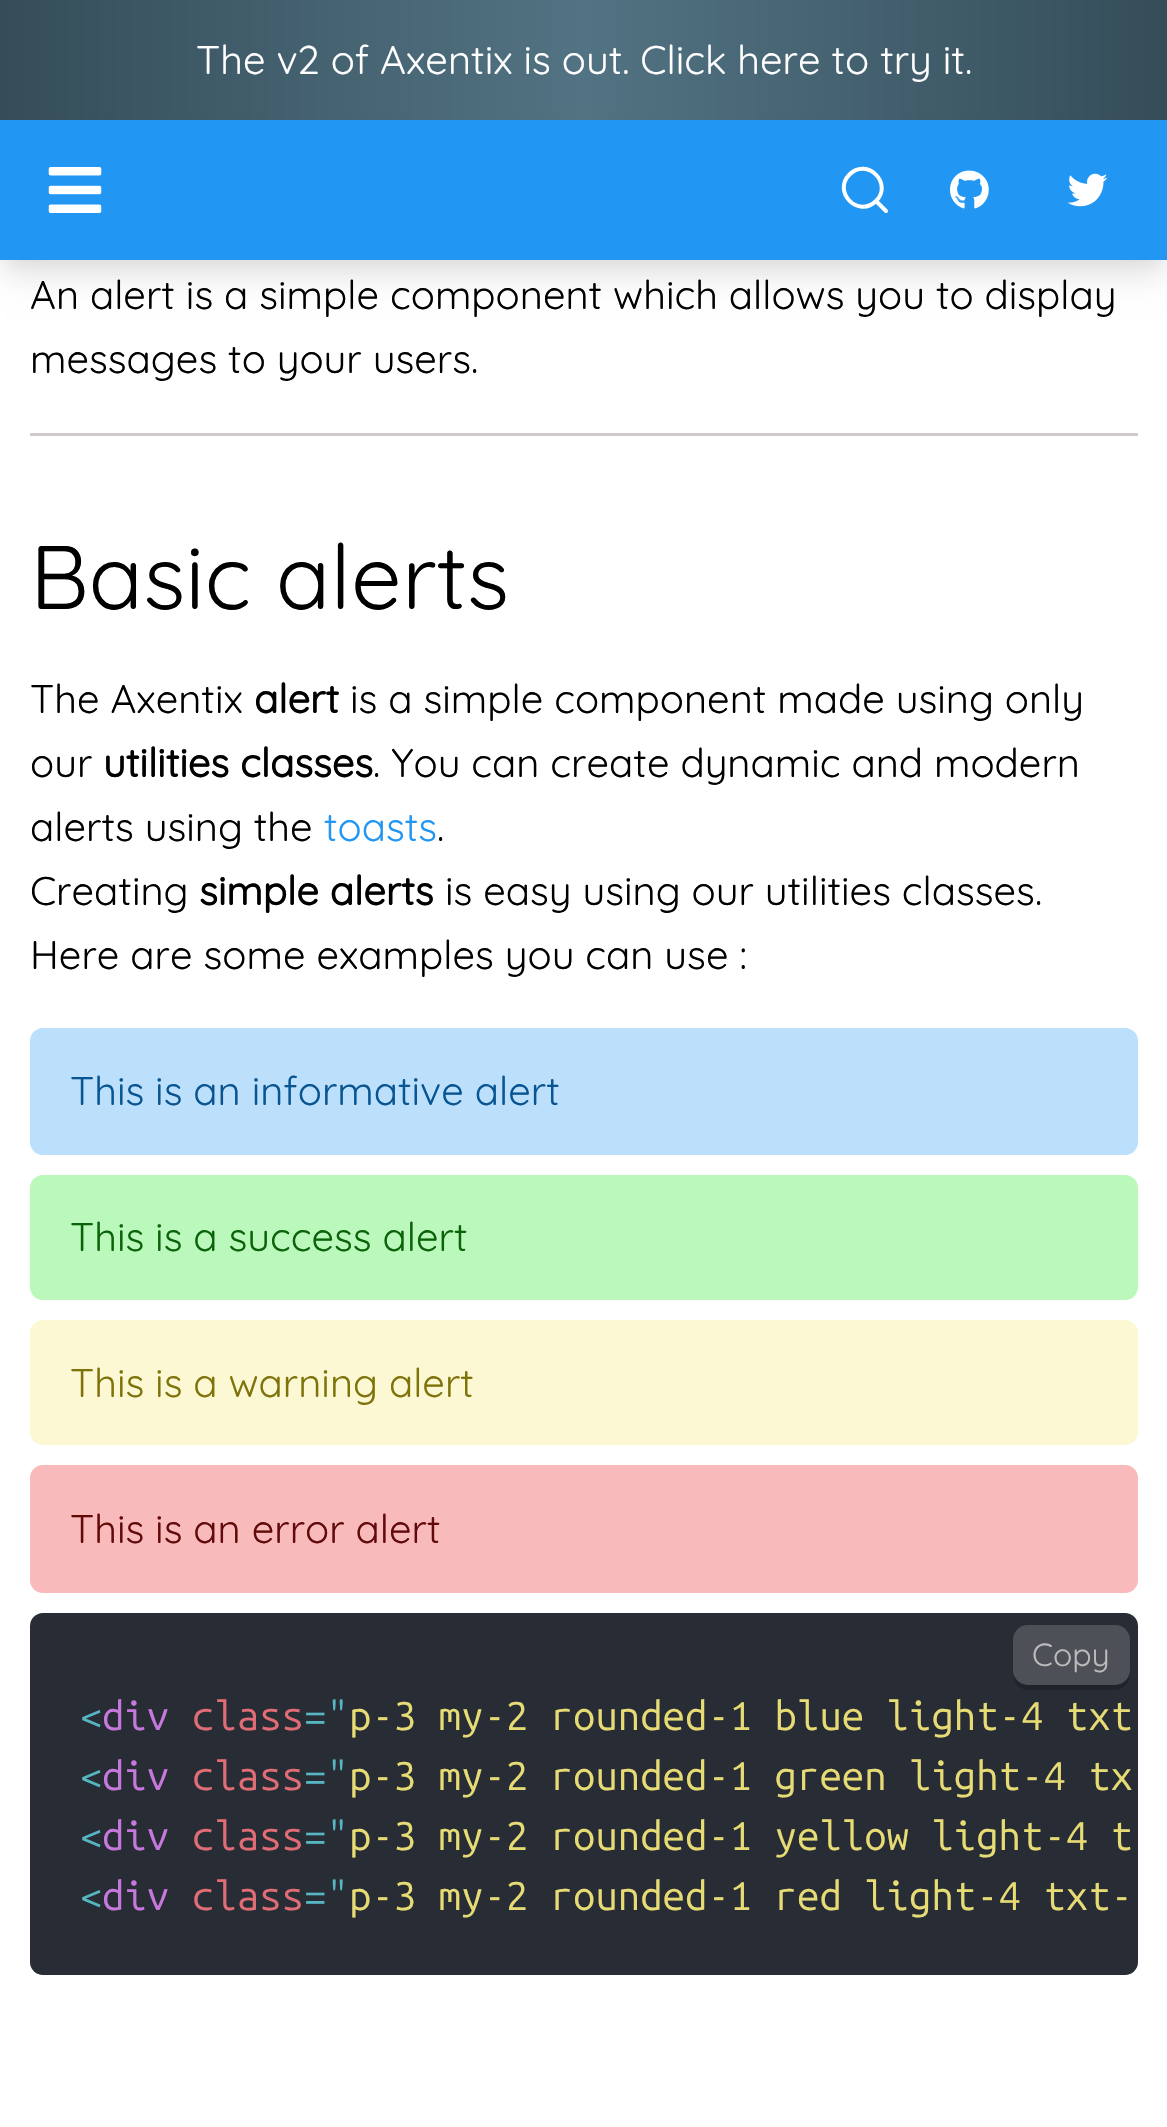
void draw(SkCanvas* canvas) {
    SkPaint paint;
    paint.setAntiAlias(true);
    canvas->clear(0xFFFFFFFF);
    {
        const SkColor colors[] = {0xFF354D59, 0xFF527383, 0xFF354D59};
        const float stops[] = {0, 0.5f, 1};
        const SkPoint ends[] = {{0, 60}, {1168, 60}};
        paint.setShader(SkGradientShader::MakeLinear(ends, colors, stops, 3, SkTileMode::kClamp));
        paint.setAlpha(255);
    }
    canvas->drawRect(SkRect::MakeXYWH(0, 0, 1167, 120), paint);
    SkFont font1(fontMgr->matchFamilyStyle("Quicksand", SkFontStyle(300, SkFontStyle::kNormal_Width, SkFontStyle::kUpright_Slant)), 40);
    font1.setSubpixel(true);
    paint.setShader(nullptr);
    paint.setColor(0xFFFFFFFF);
    canvas->drawString("The v2 of Axentix is out. Click here to try it.", 196, 74, font1, paint);
    paint.setColor(0x0D000000);
    paint.setMaskFilter(SkMaskFilter::MakeBlur(kNormal_SkBlurStyle, 7.5f));
    canvas->drawRect(SkRect::MakeXYWH(5, 135, 1158, 130), paint);
    paint.setMaskFilter(nullptr);
    paint.setColor(0x1A000000);
    paint.setMaskFilter(SkMaskFilter::MakeBlur(kNormal_SkBlurStyle, 15));
    canvas->drawRect(SkRect::MakeXYWH(5, 145, 1158, 130), paint);
    paint.setMaskFilter(nullptr);
    paint.setColor(0xFF2196F3);
    canvas->drawRect(SkRect::MakeXYWH(0, 120, 1167, 140), paint);
    canvas->drawImageRect(SkImages::DeferredFromEncodedData(SkData::MakeFromFileName("img1.png")), SkRect::MakeXYWH(48, 167, 54, 46), SkSamplingOptions());
    paint.setStyle(SkPaint::kStroke_Style);
    paint.setStrokeWidth(4);
    paint.setStrokeCap(SkPaint::kRound_Cap);
    paint.setStrokeJoin(SkPaint::kRound_Join);
    paint.setColor(0xFFFFFFFF);
    canvas->drawPath(SkPathBuilder().moveTo(876, 201).lineTo(886, 211).lineTo(876, 201).cubicTo(858.5f, 218.5f, 832, 192, 849.5f, 174.5f).cubicTo(867, 157, 893.5f, 183.5f, 876, 201).close().detach(), paint);
    canvas->drawImageRect(SkImages::DeferredFromEncodedData(SkData::MakeFromFileName("img2.png")), SkRect::MakeXYWH(950, 170, 39, 39), SkSamplingOptions());
    canvas->drawImageRect(SkImages::DeferredFromEncodedData(SkData::MakeFromFileName("img3.png")), SkRect::MakeXYWH(1067, 173, 41, 34), SkSamplingOptions());
    paint.setStyle(SkPaint::kFill_Style);
    paint.setColor(0xFFCFC9C9);
    canvas->drawRect(SkRect::MakeXYWH(30, 433, 1108, 3), paint);
    paint.setColor(0xFF000000);
    canvas->drawString("An alert is a simple component which allows you to display", 30, 309, font1, paint);
    canvas->drawString("messages to your users.", 30, 373, font1, paint);
    SkFont font2(fontMgr->matchFamilyStyle("Quicksand", SkFontStyle(300, SkFontStyle::kNormal_Width, SkFontStyle::kUpright_Slant)), 90);
    font2.setSubpixel(true);
    canvas->drawString("Basic alerts", 30, 609, font2, paint);
    canvas->drawString("The Axentix", 30, 713, font1, paint);
    SkFont font3(fontMgr->matchFamilyStyle("Quicksand", SkFontStyle::Bold()), 40);
    font3.setSubpixel(true);
    canvas->drawString("alert", 254, 713, font3, paint);
    canvas->drawString("is a simple component made using only", 350, 713, font1, paint);
    canvas->drawString("our", 30, 777, font1, paint);
    canvas->drawString("utilities classes", 103, 777, font3, paint);
    canvas->drawString(". You can create dynamic and modern", 373, 777, font1, paint);
    canvas->drawString("alerts using the", 30, 841, font1, paint);
    paint.setColor(0xFF2196F3);
    canvas->drawString("toasts", 324, 841, font1, paint);
    paint.setColor(0xFF000000);
    canvas->drawString(".", 437, 841, font1, paint);
    canvas->drawString("Creating", 30, 905, font1, paint);
    canvas->drawString("simple alerts", 199, 905, font3, paint);
    canvas->drawString("is easy using our utilities classes.", 445, 905, font1, paint);
    canvas->drawString("Here are some examples you can use :", 30, 969, font1, paint);
    paint.setColor(0xFFBCDFFB);
    canvas->drawRoundRect(SkRect::MakeXYWH(30, 1028, 1108, 127), 13, 13, paint);
    paint.setColor(0xFF085592);
    canvas->drawString("This is an informative alert", 70, 1105, font1, paint);
    paint.setColor(0xFFBBF8BB);
    canvas->drawRoundRect(SkRect::MakeXYWH(30, 1175, 1108, 125), 13, 13, paint);
    paint.setColor(0xFF0A630A);
    canvas->drawString("This is a success alert", 70, 1251, font1, paint);
    paint.setColor(0xFFFCF8D3);
    canvas->drawRoundRect(SkRect::MakeXYWH(30, 1320, 1108, 125), 13, 13, paint);
    paint.setColor(0xFF7E730A);
    canvas->drawString("This is a warning alert", 70, 1397, font1, paint);
    paint.setColor(0xFFF8BABA);
    canvas->drawRoundRect(SkRect::MakeXYWH(30, 1465, 1108, 128), 13, 13, paint);
    paint.setColor(0xFF620A0A);
    canvas->drawString("This is an error alert", 70, 1543, font1, paint);
    paint.setColor(0xFF282C34);
    canvas->drawRoundRect(SkRect::MakeXYWH(30, 1613, 1108, 362), 13, 13, paint);
    paint.setColor(0xFF20232A);
    canvas->drawPath(SkPathBuilder().moveTo(1013, 1673).lineTo(1013, 1675).cubicTo(1013, 1683, 1020, 1690, 1028, 1690).lineTo(1115, 1690).cubicTo(1123, 1690, 1130, 1683, 1130, 1675).lineTo(1130, 1669).cubicTo(1130, 1678, 1123, 1685, 1114, 1685).lineTo(1028, 1685).cubicTo(1021, 1685, 1015, 1680, 1013, 1673).close().detach(), paint);
    paint.setColor(0x33E0E0E0);
    canvas->drawRoundRect(SkRect::MakeXYWH(1013, 1625, 117, 60), 15, 15, paint);
    SkFont font4(fontMgr->matchFamilyStyle("Quicksand", SkFontStyle(300, SkFontStyle::kNormal_Width, SkFontStyle::kUpright_Slant)), 32);
    font4.setSubpixel(true);
    paint.setColor(0xFFBBBBBB);
    canvas->drawString("Copy", 1032, 1666, font4, paint);
    SkFont font5(fontMgr->matchFamilyStyle("Ubuntu Mono", SkFontStyle::Normal()), 40);
    font5.setSubpixel(true);
    paint.setColor(0xFF56B6C2);
    canvas->drawString("<", 80, 1730, font5, paint);
    paint.setColor(0xFFC678DD);
    canvas->drawString("div", 102, 1730, font5, paint);
    paint.setColor(0xFFE06C75);
    canvas->drawString("class", 192, 1730, font5, paint);
    paint.setColor(0xFF56B6C2);
    canvas->drawString("=\"", 304, 1730, font5, paint);
    paint.setColor(0xFFE6DB74);
    canvas->drawString("p-3 my-2 rounded-1 blue light-4 txt", 349, 1730, font5, paint);
    paint.setColor(0xFF56B6C2);
    canvas->drawString("<", 80, 1790, font5, paint);
    paint.setColor(0xFFC678DD);
    canvas->drawString("div", 102, 1790, font5, paint);
    paint.setColor(0xFFE06C75);
    canvas->drawString("class", 192, 1790, font5, paint);
    paint.setColor(0xFF56B6C2);
    canvas->drawString("=\"", 304, 1790, font5, paint);
    paint.setColor(0xFFE6DB74);
    canvas->drawString("p-3 my-2 rounded-1 green light-4 tx", 349, 1790, font5, paint);
    paint.setColor(0xFF56B6C2);
    canvas->drawString("<", 80, 1850, font5, paint);
    paint.setColor(0xFFC678DD);
    canvas->drawString("div", 102, 1850, font5, paint);
    paint.setColor(0xFFE06C75);
    canvas->drawString("class", 192, 1850, font5, paint);
    paint.setColor(0xFF56B6C2);
    canvas->drawString("=\"", 304, 1850, font5, paint);
    paint.setColor(0xFFE6DB74);
    canvas->drawString("p-3 my-2 rounded-1 yellow light-4 t", 349, 1850, font5, paint);
    paint.setColor(0xFF56B6C2);
    canvas->drawString("<", 80, 1910, font5, paint);
    paint.setColor(0xFFC678DD);
    canvas->drawString("div", 102, 1910, font5, paint);
    paint.setColor(0xFFE06C75);
    canvas->drawString("class", 192, 1910, font5, paint);
    paint.setColor(0xFF56B6C2);
    canvas->drawString("=\"", 304, 1910, font5, paint);
    paint.setColor(0xFFE6DB74);
    canvas->drawString("p-3 my-2 rounded-1 red light-4 txt-", 349, 1910, font5, paint);
}
